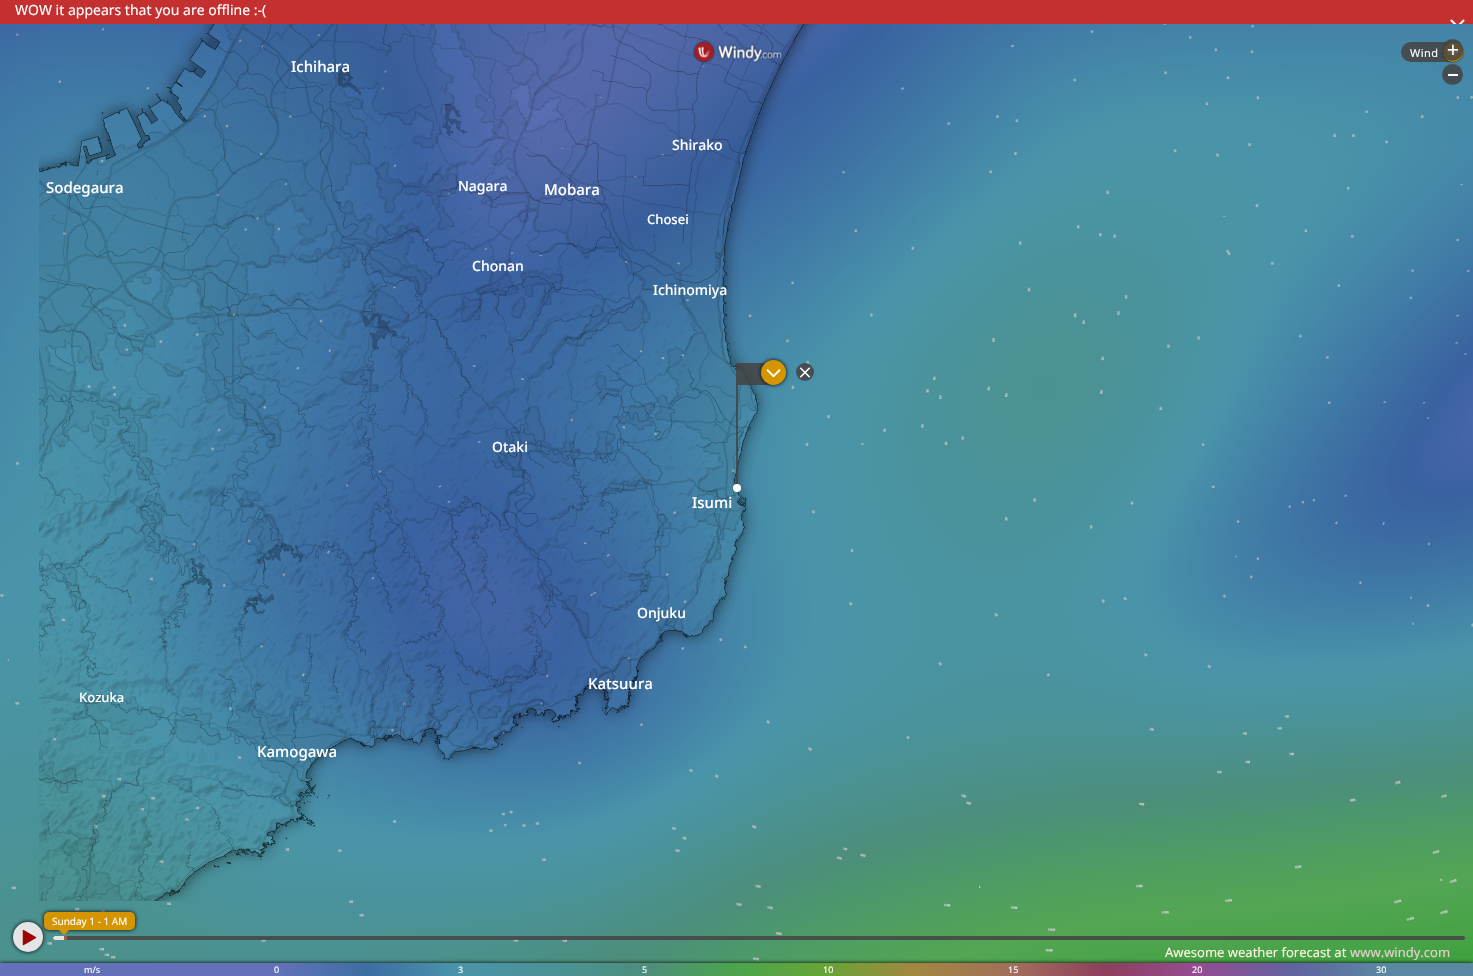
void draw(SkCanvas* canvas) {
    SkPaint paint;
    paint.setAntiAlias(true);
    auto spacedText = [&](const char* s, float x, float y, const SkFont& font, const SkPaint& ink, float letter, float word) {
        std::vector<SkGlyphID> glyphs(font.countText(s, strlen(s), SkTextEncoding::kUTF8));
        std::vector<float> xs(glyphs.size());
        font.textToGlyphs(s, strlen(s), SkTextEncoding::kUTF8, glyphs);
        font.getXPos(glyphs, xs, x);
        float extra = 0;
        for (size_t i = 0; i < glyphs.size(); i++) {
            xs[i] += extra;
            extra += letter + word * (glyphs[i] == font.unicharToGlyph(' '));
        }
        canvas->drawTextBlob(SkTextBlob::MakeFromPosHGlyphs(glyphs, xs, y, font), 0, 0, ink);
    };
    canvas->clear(0xFFFFFFFF);
    paint.setColor(0xFFC42F2F);
    canvas->drawRect(SkRect::MakeXYWH(0, 0, 1473, 24), paint);
    SkFont font1(fontMgr->matchFamilyStyle("Noto Sans", SkFontStyle::Normal()), 14);
    font1.setSubpixel(true);
    paint.setColor(0xFFFFFFFF);
    canvas->drawString("WOW it appears that you are offline :-(", 15, 15, font1, paint);
    canvas->drawImageRect(SkImages::DeferredFromEncodedData(SkData::MakeFromFileName("img1.png")), SkRect::MakeXYWH(1450, 19, 15, 5), SkSamplingOptions());
    canvas->drawImageRect(SkImages::DeferredFromEncodedData(SkData::MakeFromFileName("img9.png")), SkRect::MakeXYWH(551, 24, 256, 109), SkSamplingOptions());
    canvas->drawImageRect(SkImages::DeferredFromEncodedData(SkData::MakeFromFileName("img6.png")), SkRect::MakeXYWH(0, 24, 39, 109), SkSamplingOptions());
    canvas->drawImageRect(SkImages::DeferredFromEncodedData(SkData::MakeFromFileName("img7.png")), SkRect::MakeXYWH(39, 24, 256, 109), SkSamplingOptions());
    canvas->drawImageRect(SkImages::DeferredFromEncodedData(SkData::MakeFromFileName("img8.png")), SkRect::MakeXYWH(295, 24, 256, 109), SkSamplingOptions());
    canvas->drawImageRect(SkImages::DeferredFromEncodedData(SkData::MakeFromFileName("img10.png")), SkRect::MakeXYWH(807, 24, 256, 109), SkSamplingOptions());
    canvas->drawImageRect(SkImages::DeferredFromEncodedData(SkData::MakeFromFileName("img11.png")), SkRect::MakeXYWH(1063, 24, 256, 109), SkSamplingOptions());
    canvas->drawImageRect(SkImages::DeferredFromEncodedData(SkData::MakeFromFileName("img12.png")), SkRect::MakeXYWH(1319, 24, 154, 109), SkSamplingOptions());
    canvas->drawImageRect(SkImages::DeferredFromEncodedData(SkData::MakeFromFileName("img13.png")), SkRect::MakeXYWH(0, 133, 39, 256), SkSamplingOptions());
    canvas->drawImageRect(SkImages::DeferredFromEncodedData(SkData::MakeFromFileName("img14.png")), SkRect::MakeXYWH(39, 133, 256, 256), SkSamplingOptions());
    canvas->drawImageRect(SkImages::DeferredFromEncodedData(SkData::MakeFromFileName("img15.png")), SkRect::MakeXYWH(295, 133, 256, 256), SkSamplingOptions());
    canvas->drawImageRect(SkImages::DeferredFromEncodedData(SkData::MakeFromFileName("img16.png")), SkRect::MakeXYWH(551, 133, 256, 256), SkSamplingOptions());
    canvas->drawImageRect(SkImages::DeferredFromEncodedData(SkData::MakeFromFileName("img17.png")), SkRect::MakeXYWH(807, 133, 256, 256), SkSamplingOptions());
    canvas->drawImageRect(SkImages::DeferredFromEncodedData(SkData::MakeFromFileName("img18.png")), SkRect::MakeXYWH(1063, 133, 256, 256), SkSamplingOptions());
    canvas->drawImageRect(SkImages::DeferredFromEncodedData(SkData::MakeFromFileName("img19.png")), SkRect::MakeXYWH(1319, 133, 154, 256), SkSamplingOptions());
    canvas->drawImageRect(SkImages::DeferredFromEncodedData(SkData::MakeFromFileName("img20.png")), SkRect::MakeXYWH(0, 389, 39, 256), SkSamplingOptions());
    canvas->drawImageRect(SkImages::DeferredFromEncodedData(SkData::MakeFromFileName("img21.png")), SkRect::MakeXYWH(39, 389, 256, 256), SkSamplingOptions());
    canvas->drawImageRect(SkImages::DeferredFromEncodedData(SkData::MakeFromFileName("img22.png")), SkRect::MakeXYWH(295, 389, 256, 256), SkSamplingOptions());
    canvas->drawImageRect(SkImages::DeferredFromEncodedData(SkData::MakeFromFileName("img23.png")), SkRect::MakeXYWH(551, 389, 256, 256), SkSamplingOptions());
    canvas->drawImageRect(SkImages::DeferredFromEncodedData(SkData::MakeFromFileName("img24.png")), SkRect::MakeXYWH(807, 389, 256, 256), SkSamplingOptions());
    canvas->drawImageRect(SkImages::DeferredFromEncodedData(SkData::MakeFromFileName("img25.png")), SkRect::MakeXYWH(1063, 389, 256, 256), SkSamplingOptions());
    canvas->drawImageRect(SkImages::DeferredFromEncodedData(SkData::MakeFromFileName("img26.png")), SkRect::MakeXYWH(1319, 389, 154, 256), SkSamplingOptions());
    canvas->drawImageRect(SkImages::DeferredFromEncodedData(SkData::MakeFromFileName("img27.png")), SkRect::MakeXYWH(0, 645, 39, 256), SkSamplingOptions());
    canvas->drawImageRect(SkImages::DeferredFromEncodedData(SkData::MakeFromFileName("img28.png")), SkRect::MakeXYWH(39, 645, 256, 256), SkSamplingOptions());
    canvas->drawImageRect(SkImages::DeferredFromEncodedData(SkData::MakeFromFileName("img29.png")), SkRect::MakeXYWH(295, 645, 256, 256), SkSamplingOptions());
    canvas->drawImageRect(SkImages::DeferredFromEncodedData(SkData::MakeFromFileName("img30.png")), SkRect::MakeXYWH(551, 645, 256, 256), SkSamplingOptions());
    canvas->drawImageRect(SkImages::DeferredFromEncodedData(SkData::MakeFromFileName("img31.png")), SkRect::MakeXYWH(807, 645, 256, 256), SkSamplingOptions());
    canvas->drawImageRect(SkImages::DeferredFromEncodedData(SkData::MakeFromFileName("img32.png")), SkRect::MakeXYWH(1063, 645, 256, 256), SkSamplingOptions());
    canvas->drawImageRect(SkImages::DeferredFromEncodedData(SkData::MakeFromFileName("img33.png")), SkRect::MakeXYWH(1319, 645, 154, 256), SkSamplingOptions());
    canvas->drawImageRect(SkImages::DeferredFromEncodedData(SkData::MakeFromFileName("img34.png")), SkRect::MakeXYWH(0, 901, 39, 62), SkSamplingOptions());
    canvas->drawImageRect(SkImages::DeferredFromEncodedData(SkData::MakeFromFileName("img35.png")), SkRect::MakeXYWH(39, 901, 256, 62), SkSamplingOptions());
    canvas->drawImageRect(SkImages::DeferredFromEncodedData(SkData::MakeFromFileName("img36.png")), SkRect::MakeXYWH(295, 901, 256, 62), SkSamplingOptions());
    canvas->drawImageRect(SkImages::DeferredFromEncodedData(SkData::MakeFromFileName("img37.png")), SkRect::MakeXYWH(551, 901, 256, 62), SkSamplingOptions());
    canvas->drawImageRect(SkImages::DeferredFromEncodedData(SkData::MakeFromFileName("img38.png")), SkRect::MakeXYWH(807, 901, 256, 62), SkSamplingOptions());
    canvas->drawImageRect(SkImages::DeferredFromEncodedData(SkData::MakeFromFileName("img39.png")), SkRect::MakeXYWH(1063, 901, 256, 62), SkSamplingOptions());
    canvas->drawImageRect(SkImages::DeferredFromEncodedData(SkData::MakeFromFileName("img40.png")), SkRect::MakeXYWH(1319, 901, 154, 62), SkSamplingOptions());
    canvas->drawImageRect(SkImages::DeferredFromEncodedData(SkData::MakeFromFileName("img41.png")), SkRect::MakeXYWH(0, 24, 1473, 937), SkSamplingOptions());
    canvas->drawImageRect(SkImages::DeferredFromEncodedData(SkData::MakeFromFileName("img44.png")), SkRect::MakeXYWH(551, 24, 256, 109), SkSamplingOptions());
    canvas->drawImageRect(SkImages::DeferredFromEncodedData(SkData::MakeFromFileName("img2.png")), SkRect::MakeXYWH(692, 40, 24, 24), SkSamplingOptions());
    canvas->drawImageRect(SkImages::DeferredFromEncodedData(SkData::MakeFromFileName("img3.png")), SkRect::MakeXYWH(717, 44, 66, 19), SkSamplingOptions());
    paint.setColor(0xD6444141);
    canvas->drawRoundRect(SkRect::MakeXYWH(1401, 42, 62, 20), 10, 10, paint);
    SkFont font2(fontMgr->matchFamilyStyle("Noto Sans", SkFontStyle::Normal()), 11);
    font2.setSubpixel(true);
    paint.setColor(0xFFFFFFFF);
    spacedText("Wind", 1410, 57, font2, paint, 0.5f, 0);
    paint.setColor(0xFF000000);
    paint.setMaskFilter(SkMaskFilter::MakeBlur(kNormal_SkBlurStyle, 1));
    canvas->drawRoundRect(SkRect::MakeXYWH(1443, 42, 20, 20), 10, 10, paint);
    paint.setMaskFilter(nullptr);
    paint.setColor(0xFFD49500);
    canvas->drawCircle(1453, 52, 10, paint);
    canvas->drawImageRect(SkImages::DeferredFromEncodedData(SkData::MakeFromFileName("img4.png")), SkRect::MakeXYWH(1447, 50, 11, 7), SkSamplingOptions());
    paint.setColor(0xD6444141);
    canvas->drawRoundRect(SkRect::MakeXYWH(1442, 39, 21, 22), 10.5f, 10.5f, paint);
    canvas->drawImageRect(SkImages::DeferredFromEncodedData(SkData::MakeFromFileName("img5.png")), SkRect::MakeXYWH(1447, 44, 12, 11), SkSamplingOptions());
    canvas->drawCircle(1452.5f, 74.5f, 10.5f, paint);
    paint.setColor(0xFFFFFFFF);
    canvas->drawRect(SkRect::MakeXYWH(1448, 74, 10, 2), paint);
    canvas->drawImageRect(SkImages::DeferredFromEncodedData(SkData::MakeFromFileName("img42.png")), SkRect::MakeXYWH(78, 24, 217, 109), SkSamplingOptions());
    canvas->drawImageRect(SkImages::DeferredFromEncodedData(SkData::MakeFromFileName("img43.png")), SkRect::MakeXYWH(295, 24, 256, 109), SkSamplingOptions());
    canvas->drawImageRect(SkImages::DeferredFromEncodedData(SkData::MakeFromFileName("img45.png")), SkRect::MakeXYWH(807, 24, 13, 19), SkSamplingOptions());
    canvas->drawImageRect(SkImages::DeferredFromEncodedData(SkData::MakeFromFileName("img46.png")), SkRect::MakeXYWH(39, 133, 256, 256), SkSamplingOptions());
    canvas->drawImageRect(SkImages::DeferredFromEncodedData(SkData::MakeFromFileName("img47.png")), SkRect::MakeXYWH(295, 133, 256, 256), SkSamplingOptions());
    canvas->drawImageRect(SkImages::DeferredFromEncodedData(SkData::MakeFromFileName("img48.png")), SkRect::MakeXYWH(551, 133, 218, 256), SkSamplingOptions());
    canvas->drawImageRect(SkImages::DeferredFromEncodedData(SkData::MakeFromFileName("img49.png")), SkRect::MakeXYWH(39, 389, 256, 256), SkSamplingOptions());
    canvas->drawImageRect(SkImages::DeferredFromEncodedData(SkData::MakeFromFileName("img50.png")), SkRect::MakeXYWH(295, 389, 256, 256), SkSamplingOptions());
    canvas->drawImageRect(SkImages::DeferredFromEncodedData(SkData::MakeFromFileName("img51.png")), SkRect::MakeXYWH(551, 389, 223, 256), SkSamplingOptions());
    canvas->drawImageRect(SkImages::DeferredFromEncodedData(SkData::MakeFromFileName("img52.png")), SkRect::MakeXYWH(39, 645, 256, 256), SkSamplingOptions());
    canvas->drawImageRect(SkImages::DeferredFromEncodedData(SkData::MakeFromFileName("img53.png")), SkRect::MakeXYWH(295, 645, 256, 195), SkSamplingOptions());
    canvas->drawImageRect(SkImages::DeferredFromEncodedData(SkData::MakeFromFileName("img54.png")), SkRect::MakeXYWH(551, 645, 150, 86), SkSamplingOptions());
    SkFont font3(fontMgr->matchFamilyStyle("Noto Sans", SkFontStyle(500, SkFontStyle::kNormal_Width, SkFontStyle::kUpright_Slant)), 15);
    font3.setSubpixel(true);
    canvas->drawString("Ichihara", 291, 72, font3, paint);
    canvas->drawString("Sodegaura", 46, 193, font3, paint);
    SkFont font4(fontMgr->matchFamilyStyle("Noto Sans", SkFontStyle(500, SkFontStyle::kNormal_Width, SkFontStyle::kUpright_Slant)), 14);
    font4.setSubpixel(true);
    canvas->drawString("Nagara", 458, 191, font4, paint);
    canvas->drawString("Chonan", 472, 271, font4, paint);
    canvas->drawString("Shirako", 672, 150, font4, paint);
    canvas->drawString("Mobara", 544, 195, font3, paint);
    SkFont font5(fontMgr->matchFamilyStyle("Noto Sans", SkFontStyle(500, SkFontStyle::kNormal_Width, SkFontStyle::kUpright_Slant)), 13);
    font5.setSubpixel(true);
    canvas->drawString("Chosei", 647, 224, font5, paint);
    canvas->drawString("Ichinomiya", 653, 295, font4, paint);
    canvas->drawString("Otaki", 492, 452, font4, paint);
    canvas->drawString("Isumi", 692, 508, font3, paint);
    canvas->drawString("Onjuku", 637, 618, font4, paint);
    canvas->drawString("Katsuura", 588, 689, font3, paint);
    canvas->drawString("Kozuka", 79, 702, font5, paint);
    canvas->drawString("Kamogawa", 257, 757, font3, paint);
    paint.setColor(0xD6444141);
    canvas->drawRect(SkRect::MakeXYWH(736, 363, 2, 125), paint);
    paint.setColor(0xFFFFFFFF);
    canvas->drawCircle(737, 488, 4, paint);
    paint.setColor(0xD6444141);
    canvas->drawPath(SkPathBuilder().moveTo(738, 363).lineTo(767, 363).cubicTo(773, 363, 778, 368, 778, 374).cubicTo(778, 380, 773, 385, 767, 385).lineTo(738, 385).close().detach(), paint);
    paint.setColor(0xFF000000);
    paint.setMaskFilter(SkMaskFilter::MakeBlur(kNormal_SkBlurStyle, 2));
    canvas->drawRoundRect(SkRect::MakeXYWH(761, 360, 25, 25), 12.5f, 12.5f, paint);
    paint.setMaskFilter(nullptr);
    paint.setColor(0xFFD49500);
    canvas->drawCircle(773.5f, 372.5f, 12.5f, paint);
    canvas->drawImageRect(SkImages::DeferredFromEncodedData(SkData::MakeFromFileName("img55.png")), SkRect::MakeXYWH(766, 369, 15, 9), SkSamplingOptions());
    paint.setColor(0xD6444141);
    canvas->drawCircle(805, 372, 9, paint);
    canvas->drawImageRect(SkImages::DeferredFromEncodedData(SkData::MakeFromFileName("img56.png")), SkRect::MakeXYWH(799, 367, 12, 11), SkSamplingOptions());
    paint.setColor(0xFF000000);
    paint.setMaskFilter(SkMaskFilter::MakeBlur(kNormal_SkBlurStyle, 2));
    canvas->drawRoundRect(SkRect::MakeXYWH(44, 912, 91, 18), 5, 5, paint);
    paint.setMaskFilter(nullptr);
    paint.setColor(0xFFD49500);
    canvas->drawRoundRect(SkRect::MakeXYWH(44, 912, 91, 18), 5, 5, paint);
    paint.setColor(0xFF000000);
    paint.setMaskFilter(SkMaskFilter::MakeBlur(kNormal_SkBlurStyle, 2));
    canvas->drawRoundRect(SkRect::MakeXYWH(13, 922, 30, 30), 15, 15, paint);
    paint.setMaskFilter(nullptr);
    paint.setColor(0xFFE5E5E5);
    canvas->drawCircle(28, 937, 15, paint);
    canvas->drawImageRect(SkImages::DeferredFromEncodedData(SkData::MakeFromFileName("img57.png")), SkRect::MakeXYWH(22, 929, 15, 17), SkSamplingOptions());
    SkFont font6(fontMgr->matchFamilyStyle("Noto Sans", SkFontStyle::Normal()), 10);
    font6.setSubpixel(true);
    paint.setColor(0xFFFFFFFF);
    canvas->drawString("Sunday 1 - 1 AM", 52, 925, font6, paint);
    paint.setColor(0xFFD49500);
    canvas->drawPath(SkPathBuilder().moveTo(59, 930).lineTo(69, 930).lineTo(64, 935).close().detach(), paint);
    paint.setColor(0xD6444141);
    canvas->drawRoundRect(SkRect::MakeXYWH(53, 936, 1412, 4), 2, 2, paint);
    paint.setColor(0xFFE5E5E5);
    canvas->drawPath(SkPathBuilder().moveTo(55, 936).lineTo(64, 936).lineTo(64, 940).lineTo(55, 940).cubicTo(54, 940, 53, 939, 53, 938).cubicTo(53, 937, 54, 936, 55, 936).close().detach(), paint);
    paint.setColor(0xFF946051);
    canvas->drawRect(SkRect::MakeXYWH(64, 936, 3, 4), paint);
    paint.setColor(0xFF000000);
    paint.setMaskFilter(SkMaskFilter::MakeBlur(kNormal_SkBlurStyle, 2));
    canvas->drawRect(SkRect::MakeXYWH(0, 963, 1473, 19), paint);
    paint.setMaskFilter(nullptr);
    SkFont font7(fontMgr->matchFamilyStyle("Noto Sans", SkFontStyle::Normal()), 13);
    font7.setSubpixel(true);
    paint.setColor(0xFFFFF3E1);
    canvas->drawString("Awesome weather forecast at", 1165, 957, font7, paint);
    paint.setColor(0xFFE6CECE);
    canvas->drawString("www.windy.com", 1350, 957, font7, paint);
    {
        const SkColor colors[] = {0xFF6271B8, 0xFF6271B8, 0xFF3D6EA3, 0xFF4A94AA, 0xFF4A9294, 0xFF4D8E7C, 0xFF4CA44C, 0xFF67A436, 0xFFA28740, 0xFFA26D5C, 0xFF8D3F5C, 0xFF974B91, 0xFF5F64A0, 0xFF5B88A1, 0xFF5B88A1};
        const float stops[] = {0, 0.19f, 0.25f, 0.31f, 0.38f, 0.44f, 0.5f, 0.56f, 0.62f, 0.69f, 0.75f, 0.81f, 0.88f, 0.94f, 1};
        const SkPoint ends[] = {{0, 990}, {1473, 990}};
        paint.setShader(SkGradientShader::MakeLinear(ends, colors, stops, 15, SkTileMode::kClamp));
        paint.setAlpha(255);
    }
    canvas->drawRect(SkRect::MakeXYWH(0, 963, 1473, 13), paint);
    SkFont font8(fontMgr->matchFamilyStyle("Noto Sans", SkFontStyle::Normal()), 9);
    font8.setSubpixel(true);
    paint.setShader(nullptr);
    paint.setColor(0xFFFFFFFF);
    canvas->drawString("m/s", 84, 973, font8, paint);
    canvas->drawString("0", 274, 973, font8, paint);
    canvas->drawString("3", 458, 973, font8, paint);
    canvas->drawString("5", 642, 973, font8, paint);
    canvas->drawString("10", 823, 973, font8, paint);
    canvas->drawString("15", 1008, 973, font8, paint);
    canvas->drawString("20", 1192, 973, font8, paint);
    canvas->drawString("30", 1376, 973, font8, paint);
}
